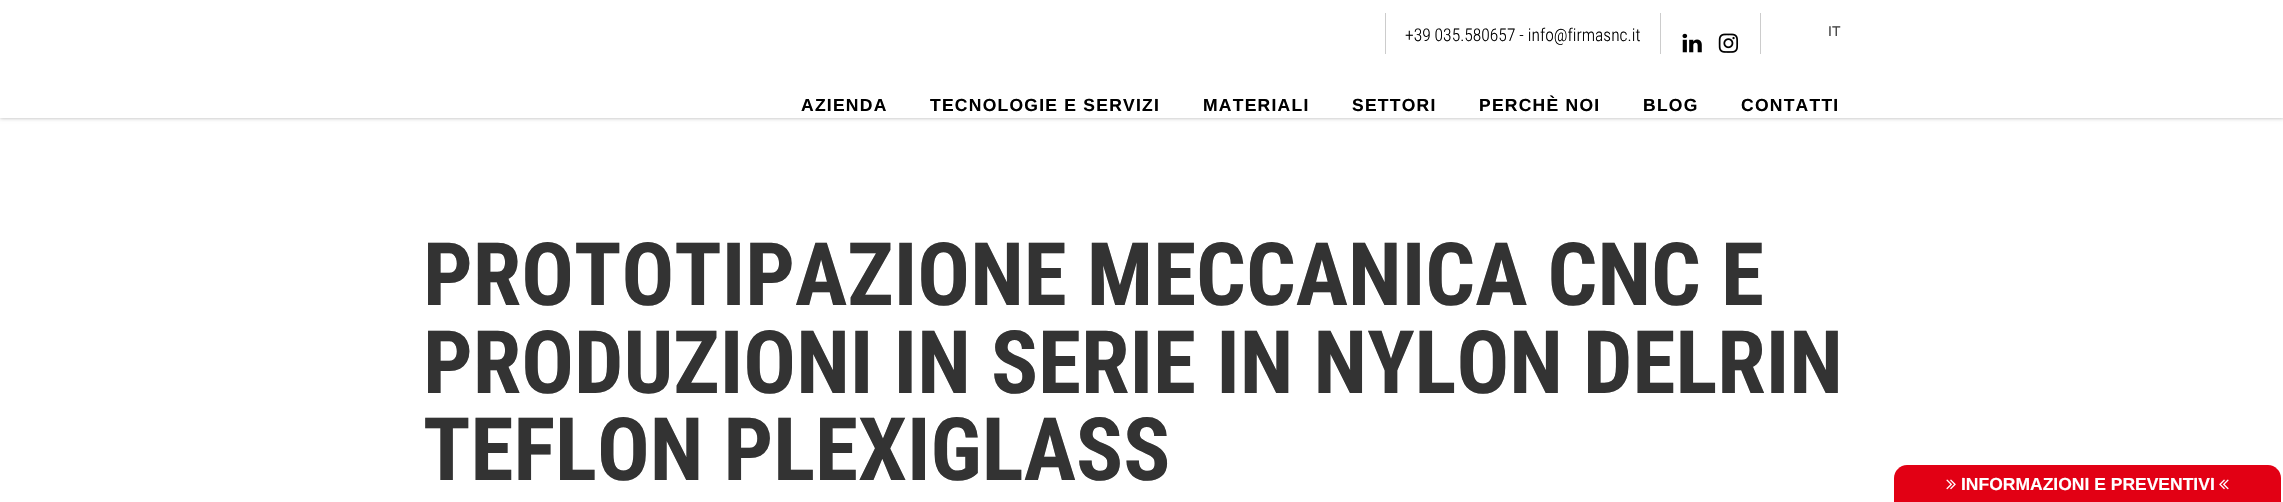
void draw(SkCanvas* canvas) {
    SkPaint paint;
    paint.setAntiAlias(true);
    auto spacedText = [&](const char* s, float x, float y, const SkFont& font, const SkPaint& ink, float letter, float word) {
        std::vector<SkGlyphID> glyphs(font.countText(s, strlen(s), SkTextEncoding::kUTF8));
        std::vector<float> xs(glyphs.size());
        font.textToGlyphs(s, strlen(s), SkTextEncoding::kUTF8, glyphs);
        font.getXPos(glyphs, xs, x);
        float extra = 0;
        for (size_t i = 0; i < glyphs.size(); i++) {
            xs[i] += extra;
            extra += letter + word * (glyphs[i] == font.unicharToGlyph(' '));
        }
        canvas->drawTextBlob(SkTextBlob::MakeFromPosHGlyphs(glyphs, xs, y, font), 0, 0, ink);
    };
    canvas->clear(0xFFFFFFFF);
    paint.setColor(0x4D000000);
    paint.setMaskFilter(SkMaskFilter::MakeBlur(kNormal_SkBlurStyle, 2));
    canvas->drawRect(SkRect::MakeXYWH(0, 0, 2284, 118), paint);
    paint.setMaskFilter(nullptr);
    paint.setColor(0xFFFFFFFF);
    canvas->drawRect(SkRect::MakeXYWH(0, 0, 2283, 118), paint);
    paint.setColor(0xFFCCCCCC);
    canvas->drawRect(SkRect::MakeXYWH(1385, 13, 1, 41), paint);
    canvas->drawRect(SkRect::MakeXYWH(1660, 13, 1, 41), paint);
    SkFont font1(fontMgr->matchFamilyStyle("Roboto Condensed", SkFontStyle(300, SkFontStyle::kNormal_Width, SkFontStyle::kUpright_Slant)), 17.5f);
    font1.setSubpixel(true);
    paint.setColor(0xFF000000);
    canvas->drawString("+39 035.580657 - info@firmasnc.it", 1405, 41, font1, paint);
    canvas->drawImageRect(SkImages::DeferredFromEncodedData(SkData::MakeFromFileName("img1.png")), SkRect::MakeXYWH(1682, 33, 20, 20), SkSamplingOptions());
    canvas->drawImageRect(SkImages::DeferredFromEncodedData(SkData::MakeFromFileName("img2.png")), SkRect::MakeXYWH(1718, 33, 21, 20), SkSamplingOptions());
    paint.setColor(0xFFCCCCCC);
    canvas->drawRect(SkRect::MakeXYWH(1760, 13, 1, 41), paint);
    SkFont font2(fontMgr->matchFamilyStyle("Liberation Sans", SkFontStyle::Normal()), 14);
    font2.setSubpixel(true);
    paint.setColor(0xFF444444);
    canvas->drawString("IT", 1828, 36, font2, paint);
    SkFont font3(fontMgr->matchFamilyStyle("Liberation Sans", SkFontStyle::Bold()), 17.5f);
    font3.setSubpixel(true);
    paint.setColor(0xFF000000);
    spacedText("AZIENDA", 801, 111, font3, paint, 1.25f, 0);
    spacedText("TECNOLOGIE E SERVIZI", 930, 111, font3, paint, 1.25f, 0);
    spacedText("MATERIALI", 1203, 111, font3, paint, 1.25f, 0);
    spacedText("SETTORI", 1352, 111, font3, paint, 1.25f, 0);
    spacedText("PERCHÈ NOI", 1479, 111, font3, paint, 1.25f, 0);
    spacedText("BLOG", 1643, 111, font3, paint, 1.25f, 0);
    spacedText("CONTATTI", 1741, 111, font3, paint, 1.25f, 0);
    SkFont font4(fontMgr->matchFamilyStyle("Roboto Condensed", SkFontStyle::Bold()), 87.5f);
    font4.setSubpixel(true);
    paint.setColor(0xFF333333);
    canvas->drawString("PROTOTIPAZIONE MECCANICA CNC E", 423, 305, font4, paint);
    canvas->drawString("PRODUZIONI IN SERIE IN NYLON DELRIN", 423, 393, font4, paint);
    canvas->drawString("TEFLON PLEXIGLASS", 423, 480, font4, paint);
    paint.setColor(0xFFE20014);
    canvas->drawPath(SkPathBuilder().moveTo(1907, 465).lineTo(2268, 465).cubicTo(2275, 465, 2281, 471, 2281, 478).lineTo(2281, 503).lineTo(1894, 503).lineTo(1894, 478).cubicTo(1894, 471, 1900, 465, 1907, 465).close().detach(), paint);
    canvas->drawImageRect(SkImages::DeferredFromEncodedData(SkData::MakeFromFileName("img3.png")), SkRect::MakeXYWH(1946, 479, 10, 11), SkSamplingOptions());
    paint.setColor(0xFFFFFFFF);
    canvas->drawString("INFORMAZIONI E PREVENTIVI", 1961, 490, font3, paint);
    canvas->drawImageRect(SkImages::DeferredFromEncodedData(SkData::MakeFromFileName("img4.png")), SkRect::MakeXYWH(2219, 479, 10, 11), SkSamplingOptions());
}
